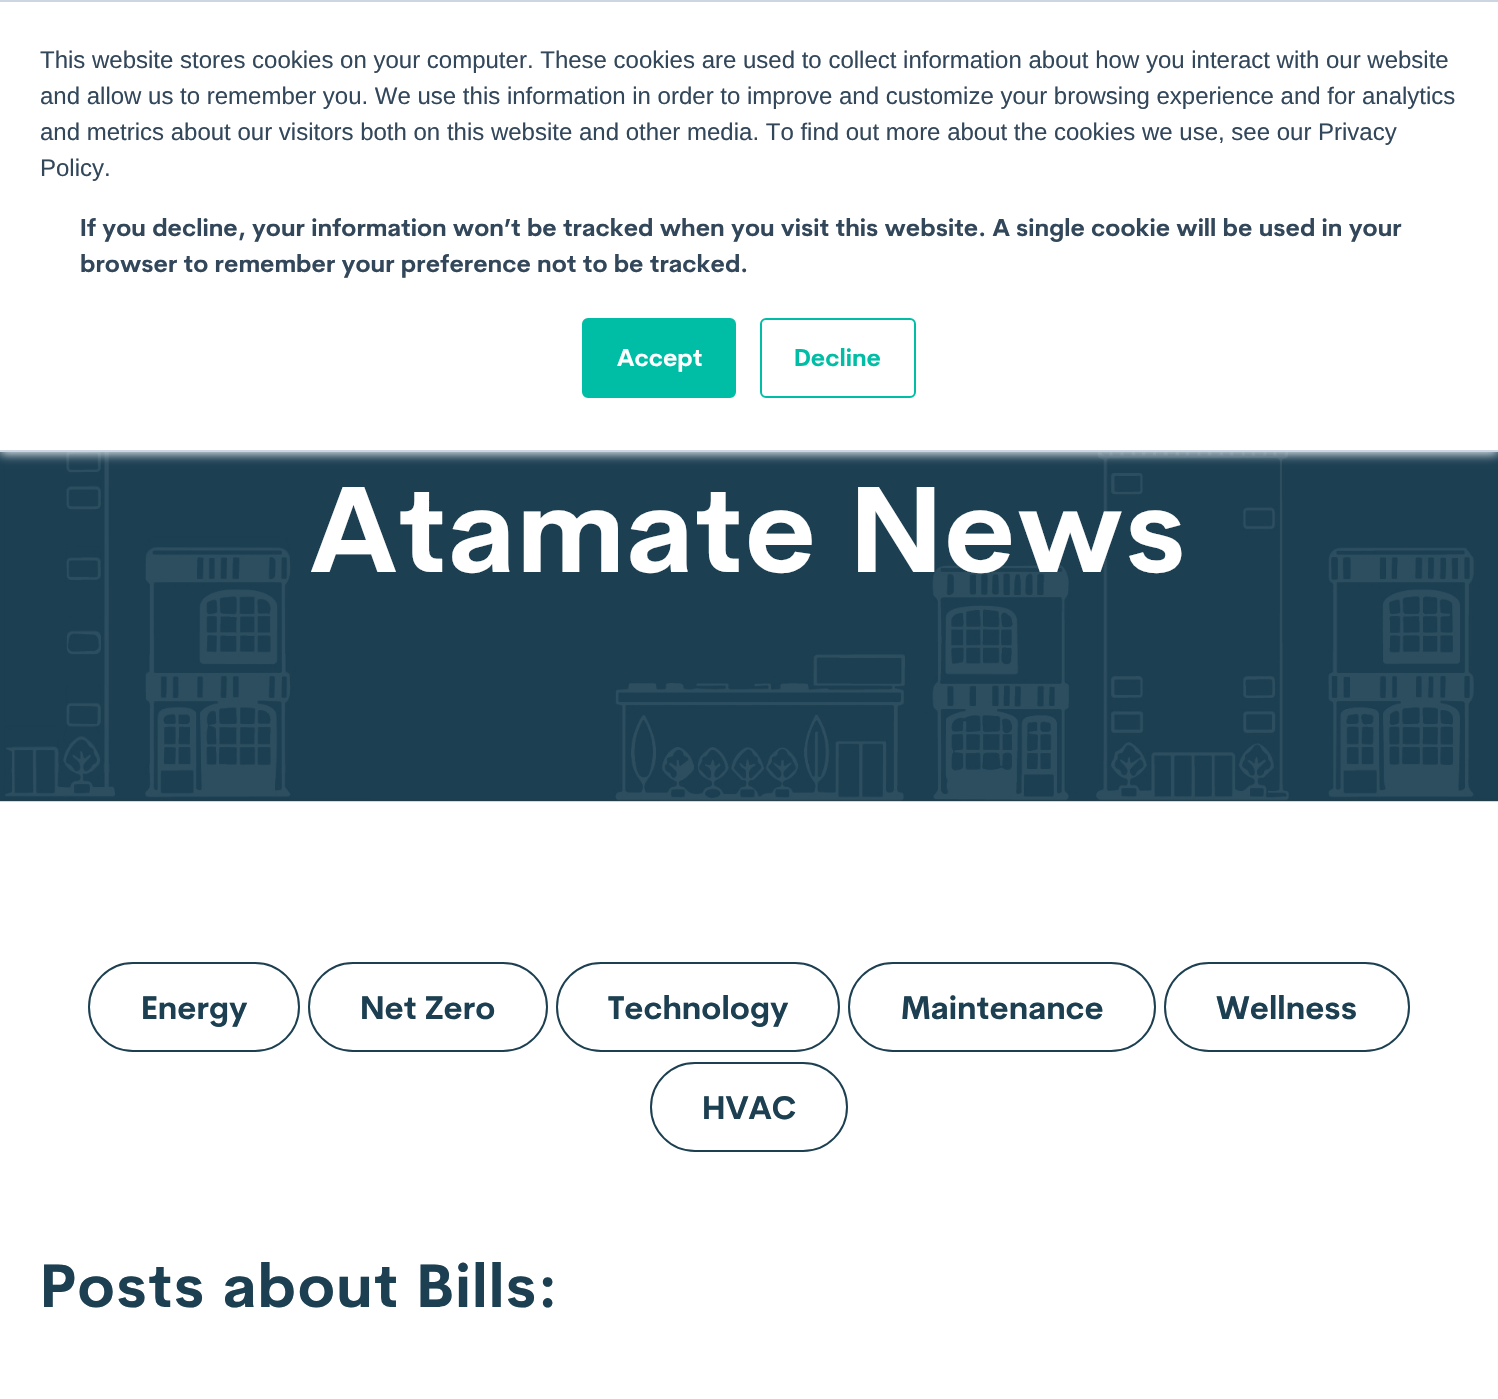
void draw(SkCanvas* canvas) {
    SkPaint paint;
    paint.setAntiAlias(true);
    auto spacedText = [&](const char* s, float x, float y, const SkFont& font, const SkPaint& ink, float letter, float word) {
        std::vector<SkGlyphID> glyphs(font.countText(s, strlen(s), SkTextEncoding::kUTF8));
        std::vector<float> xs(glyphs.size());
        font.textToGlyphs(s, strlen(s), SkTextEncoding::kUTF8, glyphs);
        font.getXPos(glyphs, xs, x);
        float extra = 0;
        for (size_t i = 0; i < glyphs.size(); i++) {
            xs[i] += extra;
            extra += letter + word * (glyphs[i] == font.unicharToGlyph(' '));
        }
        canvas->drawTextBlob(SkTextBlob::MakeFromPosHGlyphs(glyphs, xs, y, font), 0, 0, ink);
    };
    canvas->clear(0xFFFFFFFF);
    canvas->drawImageRect(SkImages::DeferredFromEncodedData(SkData::MakeFromFileName("img1.png")), SkRect::MakeXYWH(0, 452, 1498, 350), SkSamplingOptions());
    paint.setColor(0xFFEAF0F6);
    paint.setMaskFilter(SkMaskFilter::MakeBlur(kNormal_SkBlurStyle, 5));
    canvas->drawRect(SkRect::MakeXYWH(0, 2, 1498, 452), paint);
    paint.setMaskFilter(nullptr);
    paint.setColor(0xFFFFFFFF);
    canvas->drawRect(SkRect::MakeXYWH(0, 2, 1498, 448), paint);
    paint.setColor(0xFFCBD6E2);
    canvas->drawRect(SkRect::MakeXYWH(0, 0, 1498, 2), paint);
    canvas->drawRect(SkRect::MakeXYWH(0, 450, 1498, 2), paint);
    SkFont font1(fontMgr->matchFamilyStyle("Liberation Sans", SkFontStyle::Normal()), 24);
    font1.setSubpixel(true);
    paint.setColor(0xFF33475B);
    canvas->drawString("This website stores cookies on your computer. These cookies are used to collect information about how you interact with our website", 40, 68, font1, paint);
    canvas->drawString("and allow us to remember you. We use this information in order to improve and customize your browsing experience and for analytics", 40, 104, font1, paint);
    canvas->drawString("and metrics about our visitors both on this website and other media. To find out more about the cookies we use, see our Privacy", 40, 140, font1, paint);
    canvas->drawString("Policy.", 40, 176, font1, paint);
    SkFont font2(fontMgr->matchFamilyStyle("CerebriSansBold", SkFontStyle::Bold()), 24);
    font2.setSubpixel(true);
    canvas->drawString("If you decline, your information won’t be tracked when you visit this website. A single cookie will be used in your", 80, 236, font2, paint);
    canvas->drawString("browser to remember your preference not to be tracked.", 80, 272, font2, paint);
    paint.setColor(0xFF00BDA5);
    canvas->drawRoundRect(SkRect::MakeXYWH(583, 319, 152, 78), 5, 5, paint);
    paint.setStyle(SkPaint::kStroke_Style);
    paint.setStrokeWidth(2);
    canvas->drawRoundRect(SkRect::MakeXYWH(583, 319, 152, 78), 5, 5, paint);
    paint.setStyle(SkPaint::kFill_Style);
    paint.setColor(0xFFFFFFFF);
    canvas->drawString("Accept", 617, 366, font2, paint);
    paint.setStyle(SkPaint::kStroke_Style);
    paint.setColor(0xFF00BDA5);
    canvas->drawRoundRect(SkRect::MakeXYWH(761, 319, 154, 78), 5, 5, paint);
    paint.setStyle(SkPaint::kFill_Style);
    canvas->drawString("Decline", 794, 366, font2, paint);
    SkFont font3(fontMgr->matchFamilyStyle("CerebriSansBold", SkFontStyle::Bold()), 120);
    font3.setSubpixel(true);
    paint.setColor(0xFFFFFFFF);
    spacedText("Atamate News", 310, 572, font3, paint, 1.25f, 0);
    paint.setStyle(SkPaint::kStroke_Style);
    paint.setColor(0xFF1C3F51);
    canvas->drawRoundRect(SkRect::MakeXYWH(89, 963, 210, 88), 44, 44, paint);
    SkFont font4(fontMgr->matchFamilyStyle("CerebriSansBold", SkFontStyle::Bold()), 32);
    font4.setSubpixel(true);
    paint.setStyle(SkPaint::kFill_Style);
    canvas->drawString("Energy", 141, 1019, font4, paint);
    paint.setStyle(SkPaint::kStroke_Style);
    canvas->drawRoundRect(SkRect::MakeXYWH(309, 963, 238, 88), 44, 44, paint);
    paint.setStyle(SkPaint::kFill_Style);
    canvas->drawString("Net Zero", 360, 1019, font4, paint);
    paint.setStyle(SkPaint::kStroke_Style);
    canvas->drawRoundRect(SkRect::MakeXYWH(557, 963, 282, 88), 44, 44, paint);
    paint.setStyle(SkPaint::kFill_Style);
    canvas->drawString("Technology", 608, 1019, font4, paint);
    paint.setStyle(SkPaint::kStroke_Style);
    canvas->drawRoundRect(SkRect::MakeXYWH(849, 963, 306, 88), 44, 44, paint);
    paint.setStyle(SkPaint::kFill_Style);
    canvas->drawString("Maintenance", 901, 1019, font4, paint);
    paint.setStyle(SkPaint::kStroke_Style);
    canvas->drawRoundRect(SkRect::MakeXYWH(1165, 963, 244, 88), 44, 44, paint);
    paint.setStyle(SkPaint::kFill_Style);
    canvas->drawString("Wellness", 1216, 1019, font4, paint);
    paint.setStyle(SkPaint::kStroke_Style);
    canvas->drawRoundRect(SkRect::MakeXYWH(651, 1063, 196, 88), 44, 44, paint);
    paint.setStyle(SkPaint::kFill_Style);
    canvas->drawString("HVAC", 702, 1119, font4, paint);
    SkFont font5(fontMgr->matchFamilyStyle("CerebriSansBold", SkFontStyle::Bold()), 60);
    font5.setSubpixel(true);
    spacedText("Posts about Bills:", 40, 1307, font5, paint, 1.25f, 0);
}
